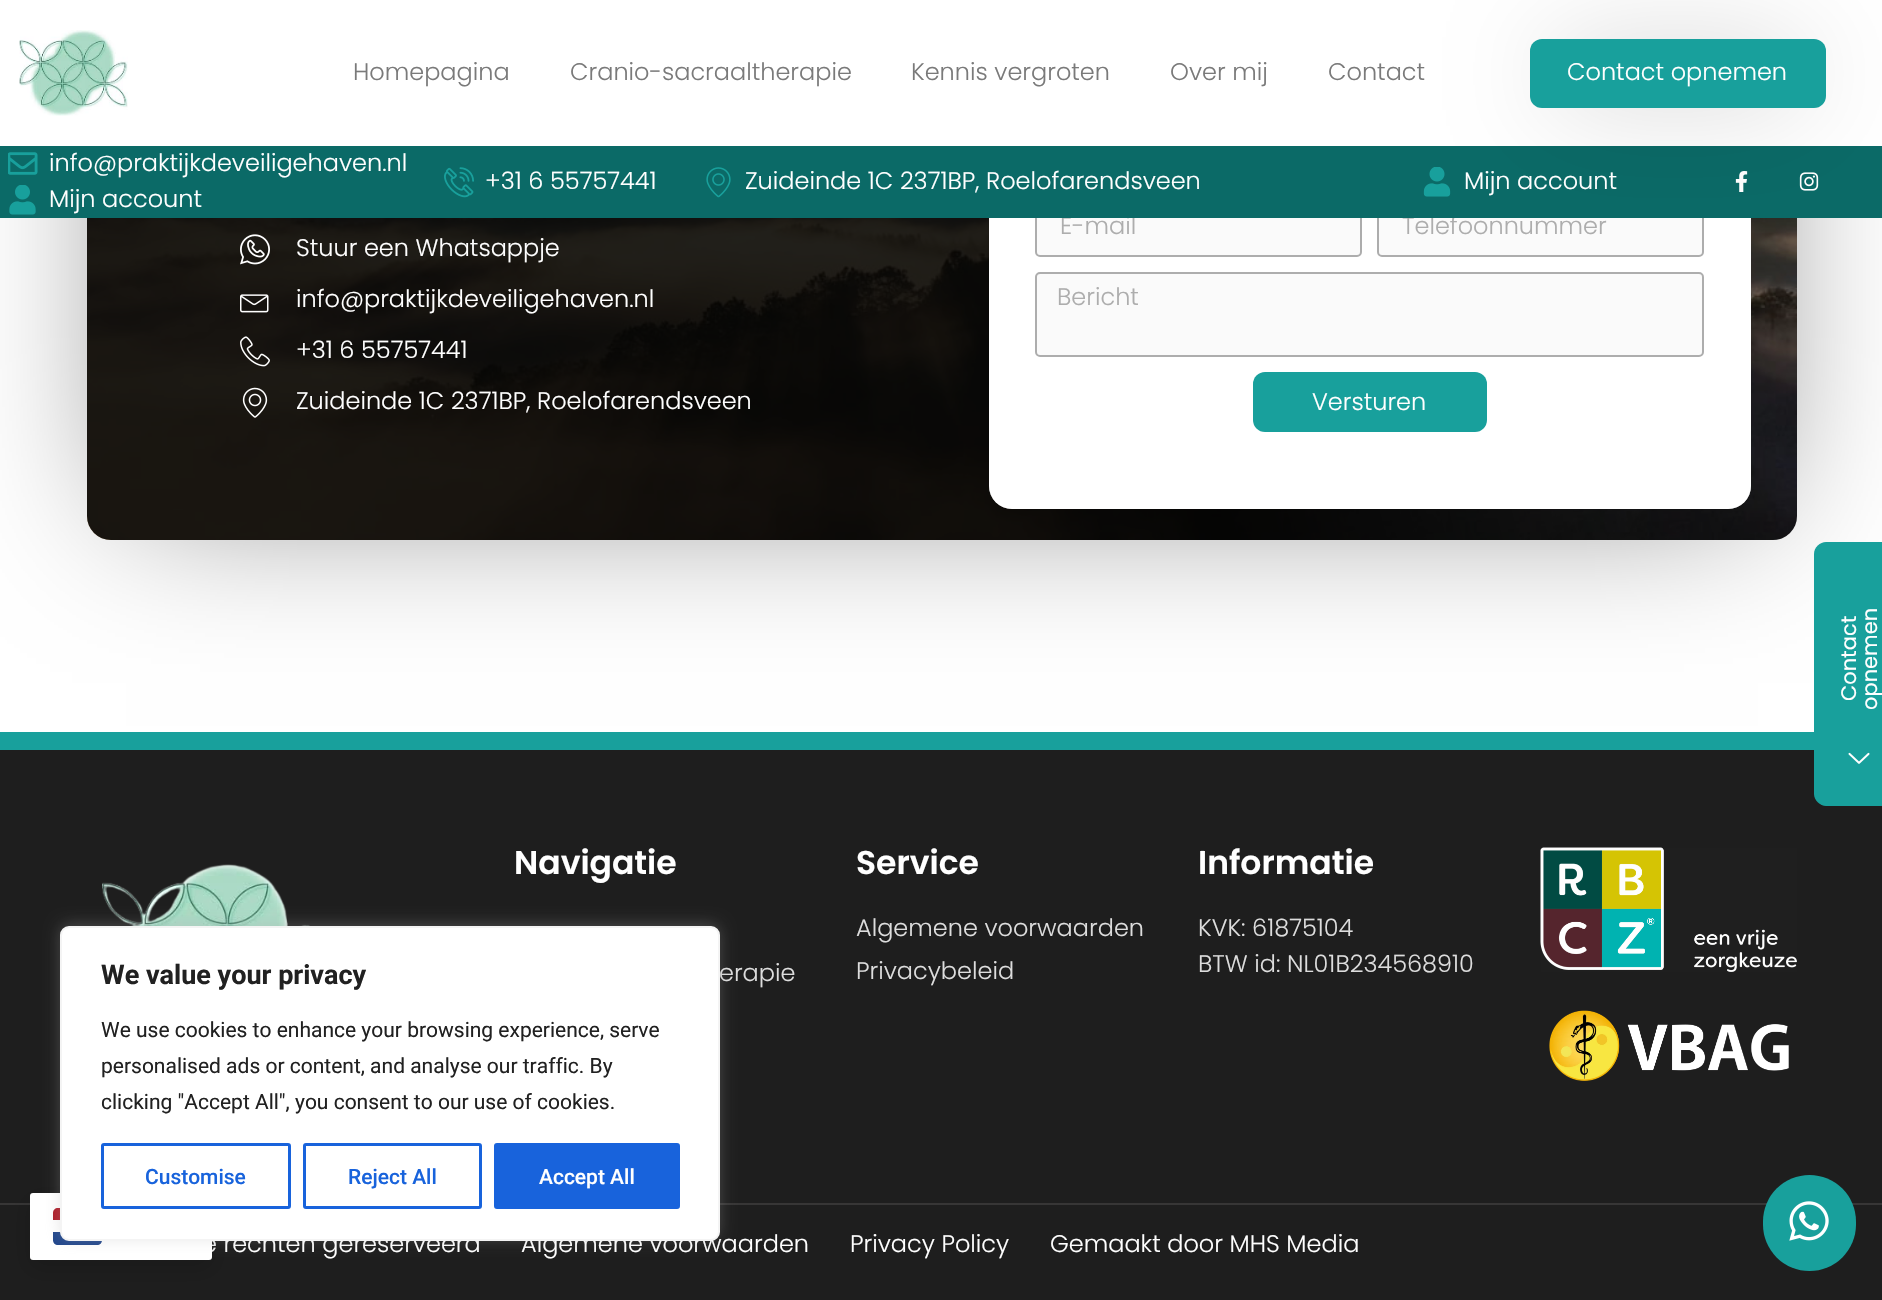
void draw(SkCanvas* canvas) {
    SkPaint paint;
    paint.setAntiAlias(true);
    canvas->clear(0xFFFFFFFF);
    paint.setColor(0x80000000);
    paint.setMaskFilter(SkMaskFilter::MakeBlur(kNormal_SkBlurStyle, 75));
    canvas->drawRect(SkRect::MakeXYWH(126, -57, 1632, 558), paint);
    paint.setMaskFilter(nullptr);
    canvas->drawImageRect(SkImages::DeferredFromEncodedData(SkData::MakeFromFileName("img9.png")), SkRect::MakeXYWH(87, 218, 1710, 322), SkSamplingOptions());
    {
        const SkColor colors[] = {0xDE000000, 0x00000000};
        const float stops[] = {0.61f, 1};
        const SkPoint ends[] = {{65, 457}, {1819, -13}};
        paint.setShader(SkGradientShader::MakeLinear(ends, colors, stops, 2, SkTileMode::kClamp));
        paint.setAlpha(255);
    }
    canvas->drawRoundRect(SkRect::MakeXYWH(87, -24, 1710, 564), 24, 24, paint);
    paint.setShader(nullptr);
    paint.setColor(0xFFFFFFFF);
    canvas->drawRoundRect(SkRect::MakeXYWH(989, -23, 762, 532), 23, 23, paint);
    paint.setStyle(SkPaint::kStroke_Style);
    paint.setStrokeWidth(2);
    paint.setColor(0x96FFFFFF);
    canvas->drawRoundRect(SkRect::MakeXYWH(990, -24, 760, 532), 22, 22, paint);
    paint.setStyle(SkPaint::kFill_Style);
    paint.setColor(0xFFFFFFFF);
    canvas->drawRect(SkRect::MakeXYWH(0, 0, 1882, 146), paint);
    canvas->drawImageRect(SkImages::DeferredFromEncodedData(SkData::MakeFromFileName("img1.png")), SkRect::MakeXYWH(19, 30, 109, 86), SkSamplingOptions());
    SkFont font1(fontMgr->matchFamilyStyle("Poppins", SkFontStyle(300, SkFontStyle::kNormal_Width, SkFontStyle::kUpright_Slant)), 24);
    font1.setSubpixel(true);
    paint.setColor(0xFF7A7A7A);
    canvas->drawString("Homepagina", 353, 80, font1, paint);
    canvas->drawString("Cranio-sacraaltherapie", 570, 80, font1, paint);
    canvas->drawString("Kennis vergroten", 911, 80, font1, paint);
    canvas->drawString("Over mij", 1170, 80, font1, paint);
    paint.setColor(0xFFFAFAFA);
    canvas->drawRoundRect(SkRect::MakeXYWH(1036, 198, 325, 58), 4, 4, paint);
    paint.setStyle(SkPaint::kStroke_Style);
    paint.setColor(0xFFADADAD);
    canvas->drawRoundRect(SkRect::MakeXYWH(1036, 198, 325, 58), 4, 4, paint);
    paint.setStyle(SkPaint::kFill_Style);
    canvas->drawString("E-mail", 1060, 234, font1, paint);
    paint.setColor(0xFFFAFAFA);
    canvas->drawRoundRect(SkRect::MakeXYWH(1378, 198, 325, 58), 4, 4, paint);
    paint.setStyle(SkPaint::kStroke_Style);
    paint.setColor(0xFFADADAD);
    canvas->drawRoundRect(SkRect::MakeXYWH(1378, 198, 325, 58), 4, 4, paint);
    paint.setStyle(SkPaint::kFill_Style);
    canvas->drawString("Telefoonnummer", 1402, 234, font1, paint);
    paint.setColor(0xFF0B6A67);
    canvas->drawRect(SkRect::MakeXYWH(0, 146, 1882, 72), paint);
    canvas->drawImageRect(SkImages::DeferredFromEncodedData(SkData::MakeFromFileName("img6.png")), SkRect::MakeXYWH(1423, 167, 28, 30), SkSamplingOptions());
    canvas->drawImageRect(SkImages::DeferredFromEncodedData(SkData::MakeFromFileName("img7.png")), SkRect::MakeXYWH(1735, 171, 13, 21), SkSamplingOptions());
    canvas->drawImageRect(SkImages::DeferredFromEncodedData(SkData::MakeFromFileName("img8.png")), SkRect::MakeXYWH(1799, 172, 20, 19), SkSamplingOptions());
    paint.setColor(0x80000000);
    paint.setMaskFilter(SkMaskFilter::MakeBlur(kNormal_SkBlurStyle, 56));
    canvas->drawRect(SkRect::MakeXYWH(1554, 63, 248, 21), paint);
    paint.setMaskFilter(nullptr);
    paint.setColor(0xFF7A7A7A);
    canvas->drawString("Contact", 1328, 80, font1, paint);
    paint.setColor(0xFF18A09C);
    canvas->drawRoundRect(SkRect::MakeXYWH(1530, 39, 296, 69), 12, 12, paint);
    paint.setColor(0xFFFFFFFF);
    canvas->drawString("Contact opnemen", 1567, 80, font1, paint);
    canvas->drawImageRect(SkImages::DeferredFromEncodedData(SkData::MakeFromFileName("img2.png")), SkRect::MakeXYWH(8, 152, 30, 23), SkSamplingOptions());
    canvas->drawString("info@praktijkdeveiligehaven.nl", 49, 171, font1, paint);
    canvas->drawImageRect(SkImages::DeferredFromEncodedData(SkData::MakeFromFileName("img3.png")), SkRect::MakeXYWH(9, 185, 27, 30), SkSamplingOptions());
    canvas->drawString("Mijn account", 49, 207, font1, paint);
    canvas->drawImageRect(SkImages::DeferredFromEncodedData(SkData::MakeFromFileName("img4.png")), SkRect::MakeXYWH(444, 167, 30, 31), SkSamplingOptions());
    canvas->drawString("+31 6 55757441", 485, 189, font1, paint);
    canvas->drawImageRect(SkImages::DeferredFromEncodedData(SkData::MakeFromFileName("img5.png")), SkRect::MakeXYWH(706, 167, 25, 31), SkSamplingOptions());
    canvas->drawString("Zuideinde 1C 2371BP, Roelofarendsveen", 745, 189, font1, paint);
    canvas->drawString("Mijn account", 1464, 189, font1, paint);
    canvas->drawImageRect(SkImages::DeferredFromEncodedData(SkData::MakeFromFileName("img10.png")), SkRect::MakeXYWH(240, 234, 30, 31), SkSamplingOptions());
    canvas->drawString("Stuur een Whatsappje", 296, 256, font1, paint);
    canvas->drawImageRect(SkImages::DeferredFromEncodedData(SkData::MakeFromFileName("img11.png")), SkRect::MakeXYWH(240, 294, 29, 19), SkSamplingOptions());
    canvas->drawString("info@praktijkdeveiligehaven.nl", 296, 307, font1, paint);
    canvas->drawImageRect(SkImages::DeferredFromEncodedData(SkData::MakeFromFileName("img12.png")), SkRect::MakeXYWH(240, 336, 30, 31), SkSamplingOptions());
    canvas->drawString("+31 6 55757441", 296, 358, font1, paint);
    canvas->drawImageRect(SkImages::DeferredFromEncodedData(SkData::MakeFromFileName("img13.png")), SkRect::MakeXYWH(242, 387, 26, 31), SkSamplingOptions());
    canvas->drawString("Zuideinde 1C 2371BP, Roelofarendsveen", 296, 409, font1, paint);
    paint.setColor(0xFFFAFAFA);
    canvas->drawRoundRect(SkRect::MakeXYWH(1036, 273, 667, 83), 4, 4, paint);
    paint.setStyle(SkPaint::kStroke_Style);
    paint.setColor(0xFFADADAD);
    canvas->drawRoundRect(SkRect::MakeXYWH(1036, 273, 667, 83), 4, 4, paint);
    paint.setStyle(SkPaint::kFill_Style);
    canvas->drawString("Bericht", 1057, 305, font1, paint);
    paint.setColor(0xFF18A09C);
    canvas->drawRoundRect(SkRect::MakeXYWH(1253, 372, 234, 60), 12, 12, paint);
    paint.setColor(0xFFFFFFFF);
    canvas->drawString("Versturen", 1312, 410, font1, paint);
    paint.setColor(0xFF1E1E1E);
    canvas->drawRect(SkRect::MakeXYWH(0, 750, 1882, 550), paint);
    paint.setColor(0xFF18A09C);
    canvas->drawRect(SkRect::MakeXYWH(0, 732, 1814, 18), paint);
    canvas->drawPath(SkPathBuilder().moveTo(1814, 794).lineTo(1814, 554).cubicTo(1814, 547, 1820, 542, 1826, 542).lineTo(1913, 542).lineTo(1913, 806).lineTo(1826, 806).cubicTo(1820, 806, 1814, 800, 1814, 794).close().detach(), paint);
    SkFont font2(fontMgr->matchFamilyStyle("Poppins", SkFontStyle::Normal()), 21);
    font2.setSubpixel(true);
    paint.setColor(0xFFFFFFFF);
    canvas->save();
    canvas->rotate(-90, 1856, 701);
    canvas->drawString("Contact", 1856, 701, font2, paint);
    canvas->restore();
    canvas->save();
    canvas->rotate(-90, 1877, 710);
    canvas->drawString("opnemen", 1877, 710, font2, paint);
    canvas->restore();
    canvas->drawImageRect(SkImages::DeferredFromEncodedData(SkData::MakeFromFileName("img14.png")), SkRect::MakeXYWH(1848, 752, 22, 12), SkSamplingOptions());
    SkFont font3(fontMgr->matchFamilyStyle("Poppins", SkFontStyle(600, SkFontStyle::kNormal_Width, SkFontStyle::kUpright_Slant)), 33);
    font3.setSubpixel(true);
    canvas->drawString("Informatie", 1198, 874, font3, paint);
    paint.setColor(0xFFDDDDDD);
    canvas->drawString("KVK: 61875104", 1198, 936, font1, paint);
    canvas->drawString("BTW id: NL01B234568910", 1198, 972, font1, paint);
    paint.setColor(0xFF373636);
    canvas->drawRect(SkRect::MakeXYWH(0, 1203, 1882, 2), paint);
    paint.setColor(0xFF18A09C);
    canvas->drawRoundRect(SkRect::MakeXYWH(1763, 1175, 93, 96), 46.5f, 46.5f, paint);
    canvas->drawImageRect(SkImages::DeferredFromEncodedData(SkData::MakeFromFileName("img15.png")), SkRect::MakeXYWH(1789, 1201, 40, 40), SkSamplingOptions());
    canvas->drawImageRect(SkImages::DeferredFromEncodedData(SkData::MakeFromFileName("img16.png")), SkRect::MakeXYWH(102, 864, 208, 62), SkSamplingOptions());
    paint.setColor(0xFFFFFFFF);
    canvas->drawString("Navigatie", 514, 874, font3, paint);
    paint.setColor(0xFFDDDDDD);
    canvas->drawString("erapie", 719, 981, font1, paint);
    paint.setColor(0xFFFFFFFF);
    canvas->drawString("Service", 856, 874, font3, paint);
    paint.setColor(0xFFDDDDDD);
    canvas->drawString("Algemene voorwaarden", 856, 936, font1, paint);
    canvas->drawString("Privacybeleid", 856, 979, font1, paint);
    canvas->drawImageRect(SkImages::DeferredFromEncodedData(SkData::MakeFromFileName("img17.png")), SkRect::MakeXYWH(1540, 847, 257, 125), SkSamplingOptions());
    canvas->drawImageRect(SkImages::DeferredFromEncodedData(SkData::MakeFromFileName("img18.png")), SkRect::MakeXYWH(1549, 1010, 240, 71), SkSamplingOptions());
    paint.setColor(0xFFFFFFFF);
    canvas->drawString("e rechten gereserveerd", 202, 1252, font1, paint);
    canvas->drawString("Algemene voorwaarden", 521, 1252, font1, paint);
    canvas->drawString("Privacy Policy", 850, 1252, font1, paint);
    canvas->drawString("Gemaakt door MHS Media", 1050, 1252, font1, paint);
    paint.setColor(0x26000000);
    paint.setMaskFilter(SkMaskFilter::MakeBlur(kNormal_SkBlurStyle, 11));
    canvas->drawRoundRect(SkRect::MakeXYWH(30, 1200, 182, 68), 3, 3, paint);
    paint.setMaskFilter(nullptr);
    paint.setColor(0xFFFFFFFF);
    canvas->drawRoundRect(SkRect::MakeXYWH(30, 1193, 182, 67), 3, 3, paint);
    paint.setColor(0xFF21468B);
    canvas->drawPath(SkPathBuilder().moveTo(53, 1232).lineTo(102, 1232).lineTo(102, 1240).cubicTo(102, 1243, 100, 1245, 97, 1245).lineTo(58, 1245).cubicTo(55, 1245, 53, 1243, 53, 1240).close().detach(), paint);
    paint.setColor(0xFFAE1C28);
    canvas->drawPath(SkPathBuilder().moveTo(58, 1208).lineTo(97, 1208).cubicTo(100, 1208, 102, 1210, 102, 1213).lineTo(102, 1220).lineTo(53, 1220).lineTo(53, 1213).cubicTo(53, 1210, 55, 1208, 58, 1208).close().detach(), paint);
    paint.setColor(0x4DACABAB);
    paint.setMaskFilter(SkMaskFilter::MakeBlur(kNormal_SkBlurStyle, 7.5f));
    canvas->drawRoundRect(SkRect::MakeXYWH(60, 924, 660, 315), 9, 9, paint);
    paint.setMaskFilter(nullptr);
    paint.setColor(0xFFFFFFFF);
    canvas->drawRoundRect(SkRect::MakeXYWH(61, 927, 658, 313), 8, 8, paint);
    paint.setStyle(SkPaint::kStroke_Style);
    paint.setColor(0xFFF4F4F4);
    canvas->drawRoundRect(SkRect::MakeXYWH(61, 927, 658, 313), 8, 8, paint);
    SkFont font4(fontMgr->matchFamilyStyle("Roboto", SkFontStyle::Bold()), 27);
    font4.setSubpixel(true);
    paint.setStyle(SkPaint::kFill_Style);
    paint.setColor(0xFF212121);
    canvas->drawString("We value your privacy", 101, 984, font4, paint);
    SkFont font5(fontMgr->matchFamilyStyle("Roboto", SkFontStyle::Normal()), 21);
    font5.setSubpixel(true);
    canvas->drawString("We use cookies to enhance your browsing experience, serve", 101, 1037, font5, paint);
    canvas->drawString("personalised ads or content, and analyse our traffic. By", 101, 1073, font5, paint);
    canvas->drawString("clicking \"Accept All\", you consent to our use of cookies.", 101, 1109, font5, paint);
    paint.setStyle(SkPaint::kStroke_Style);
    paint.setStrokeWidth(3);
    paint.setColor(0xFF1863DC);
    canvas->drawRoundRect(SkRect::MakeXYWH(102.5f, 1144.5f, 187, 63), 1.5f, 1.5f, paint);
    SkFont font6(fontMgr->matchFamilyStyle("Roboto", SkFontStyle(500, SkFontStyle::kNormal_Width, SkFontStyle::kUpright_Slant)), 21);
    font6.setSubpixel(true);
    paint.setStyle(SkPaint::kFill_Style);
    canvas->drawString("Customise", 145, 1184, font6, paint);
    paint.setStyle(SkPaint::kStroke_Style);
    canvas->drawRoundRect(SkRect::MakeXYWH(304.5f, 1144.5f, 176, 63), 1.5f, 1.5f, paint);
    paint.setStyle(SkPaint::kFill_Style);
    canvas->drawString("Reject All", 348, 1184, font6, paint);
    canvas->drawRoundRect(SkRect::MakeXYWH(495.5f, 1144.5f, 183, 63), 1.5f, 1.5f, paint);
    paint.setStyle(SkPaint::kStroke_Style);
    canvas->drawRoundRect(SkRect::MakeXYWH(495.5f, 1144.5f, 183, 63), 1.5f, 1.5f, paint);
    paint.setStyle(SkPaint::kFill_Style);
    paint.setColor(0xFFFFFFFF);
    canvas->drawString("Accept All", 539, 1184, font6, paint);
}
